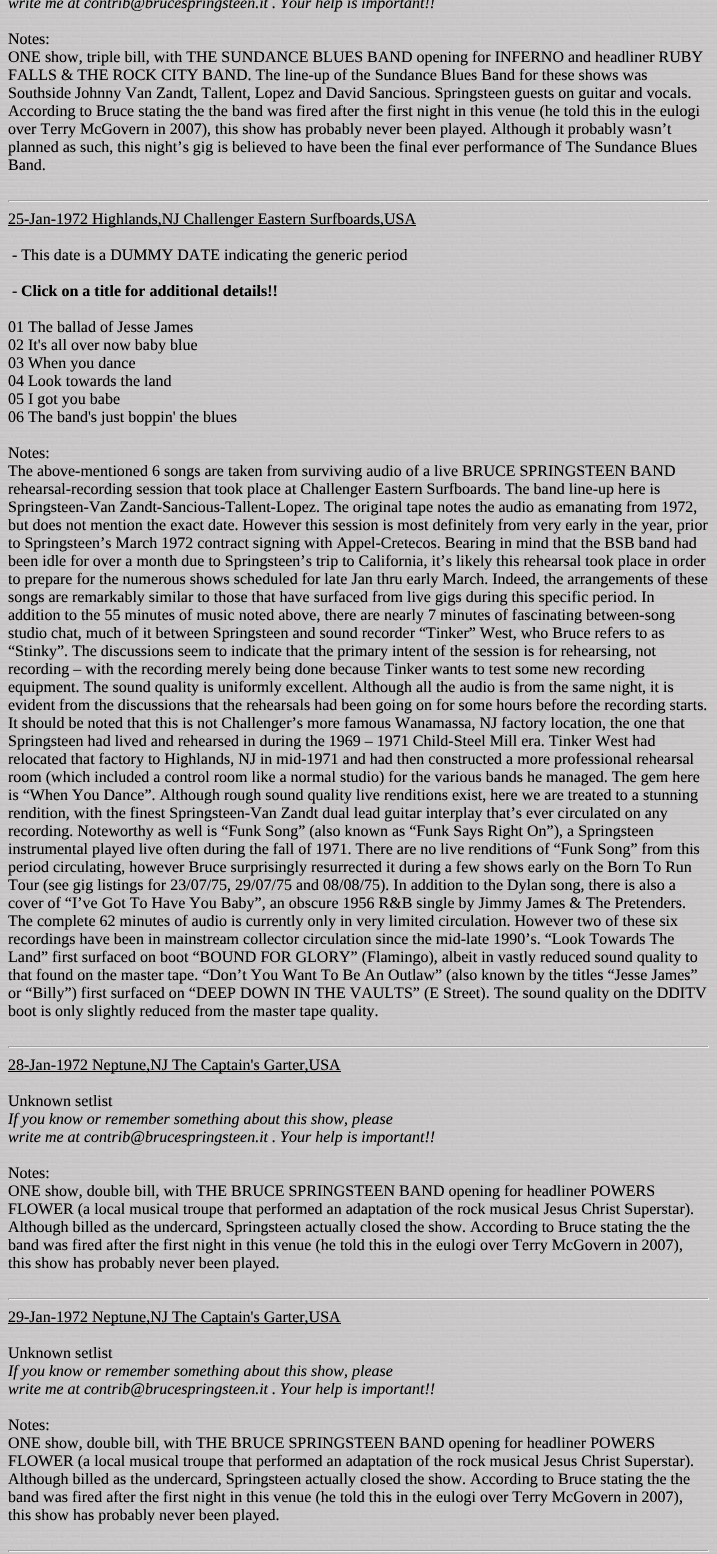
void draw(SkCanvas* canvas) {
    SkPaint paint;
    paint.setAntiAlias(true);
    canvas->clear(0xFFFFFFFF);
    canvas->drawImageRect(SkImages::DeferredFromEncodedData(SkData::MakeFromFileName("img1.png")), SkRect::MakeXYWH(0, 0, 717, 1554), SkSamplingOptions());
    SkFont font1(fontMgr->matchFamilyStyle("Liberation Serif", SkFontStyle::Italic()), 16);
    font1.setSubpixel(true);
    paint.setColor(0xFF000000);
    canvas->drawString("write me at contrib@brucespringsteen.it . Your help is important!!", 8, 8, font1, paint);
    SkFont font2(fontMgr->matchFamilyStyle("Liberation Serif", SkFontStyle::Normal()), 16);
    font2.setSubpixel(true);
    canvas->drawString("Notes:", 8, 44, font2, paint);
    canvas->drawString("ONE show, triple bill, with THE SUNDANCE BLUES BAND opening for INFERNO and headliner RUBY", 8, 62, font2, paint);
    canvas->drawString("FALLS & THE ROCK CITY BAND. The line-up of the Sundance Blues Band for these shows was", 8, 80, font2, paint);
    canvas->drawString("Southside Johnny Van Zandt, Tallent, Lopez and David Sancious. Springsteen guests on guitar and vocals.", 8, 98, font2, paint);
    canvas->drawString("According to Bruce stating the the band was fired after the first night in this venue (he told this in the eulogi", 8, 116, font2, paint);
    canvas->drawString("over Terry McGovern in 2007), this show has probably never been played. Although it probably wasn’t", 8, 134, font2, paint);
    canvas->drawString("planned as such, this night’s gig is believed to have been the final ever performance of The Sundance Blues", 8, 152, font2, paint);
    canvas->drawString("Band.", 8, 170, font2, paint);
    paint.setColor(0xFF9F9F9F);
    canvas->drawRect(SkRect::MakeXYWH(8, 200, 701, 1), paint);
    paint.setColor(0xFFEEEEEE);
    canvas->drawRect(SkRect::MakeXYWH(708, 200, 1, 2), paint);
    canvas->drawRect(SkRect::MakeXYWH(8, 201, 701, 1), paint);
    paint.setColor(0xFF9F9F9F);
    canvas->drawRect(SkRect::MakeXYWH(8, 200, 1, 2), paint);
    paint.setColor(0xFF000000);
    canvas->drawRect(SkRect::MakeXYWH(8, 225, 408, 1), paint);
    canvas->drawString("25-Jan-1972 Highlands,NJ Challenger Eastern Surfboards,USA", 8, 224, font2, paint);
    canvas->drawString("- This date is a DUMMY DATE indicating the generic period", 12, 260, font2, paint);
    canvas->drawString("-", 12, 296, font2, paint);
    SkFont font3(fontMgr->matchFamilyStyle("Liberation Serif", SkFontStyle::Bold()), 16);
    font3.setSubpixel(true);
    canvas->drawString("Click on a title for additional details!!", 21, 296, font3, paint);
    canvas->drawString("01 The ballad of Jesse James", 8, 332, font2, paint);
    canvas->drawString("02 It's all over now baby blue", 8, 350, font2, paint);
    canvas->drawString("03 When you dance", 8, 368, font2, paint);
    canvas->drawString("04 Look towards the land", 8, 386, font2, paint);
    canvas->drawString("05 I got you babe", 8, 404, font2, paint);
    canvas->drawString("06 The band's just boppin' the blues", 8, 422, font2, paint);
    canvas->drawString("Notes:", 8, 458, font2, paint);
    canvas->drawString("The above-mentioned 6 songs are taken from surviving audio of a live BRUCE SPRINGSTEEN BAND", 8, 476, font2, paint);
    canvas->drawString("rehearsal-recording session that took place at Challenger Eastern Surfboards. The band line-up here is", 8, 494, font2, paint);
    canvas->drawString("Springsteen-Van Zandt-Sancious-Tallent-Lopez. The original tape notes the audio as emanating from 1972,", 8, 512, font2, paint);
    canvas->drawString("but does not mention the exact date. However this session is most definitely from very early in the year, prior", 8, 530, font2, paint);
    canvas->drawString("to Springsteen’s March 1972 contract signing with Appel-Cretecos. Bearing in mind that the BSB band had", 8, 548, font2, paint);
    canvas->drawString("been idle for over a month due to Springsteen’s trip to California, it’s likely this rehearsal took place in order", 8, 566, font2, paint);
    canvas->drawString("to prepare for the numerous shows scheduled for late Jan thru early March. Indeed, the arrangements of these", 8, 584, font2, paint);
    canvas->drawString("songs are remarkably similar to those that have surfaced from live gigs during this specific period. In", 8, 602, font2, paint);
    canvas->drawString("addition to the 55 minutes of music noted above, there are nearly 7 minutes of fascinating between-song", 8, 620, font2, paint);
    canvas->drawString("studio chat, much of it between Springsteen and sound recorder “Tinker” West, who Bruce refers to as", 8, 638, font2, paint);
    canvas->drawString("“Stinky”. The discussions seem to indicate that the primary intent of the session is for rehearsing, not", 8, 656, font2, paint);
    canvas->drawString("recording – with the recording merely being done because Tinker wants to test some new recording", 8, 674, font2, paint);
    canvas->drawString("equipment. The sound quality is uniformly excellent. Although all the audio is from the same night, it is", 8, 692, font2, paint);
    canvas->drawString("evident from the discussions that the rehearsals had been going on for some hours before the recording starts.", 8, 710, font2, paint);
    canvas->drawString("It should be noted that this is not Challenger’s more famous Wanamassa, NJ factory location, the one that", 8, 728, font2, paint);
    canvas->drawString("Springsteen had lived and rehearsed in during the 1969 – 1971 Child-Steel Mill era. Tinker West had", 8, 746, font2, paint);
    canvas->drawString("relocated that factory to Highlands, NJ in mid-1971 and had then constructed a more professional rehearsal", 8, 764, font2, paint);
    canvas->drawString("room (which included a control room like a normal studio) for the various bands he managed. The gem here", 8, 782, font2, paint);
    canvas->drawString("is “When You Dance”. Although rough sound quality live renditions exist, here we are treated to a stunning", 8, 800, font2, paint);
    canvas->drawString("rendition, with the finest Springsteen-Van Zandt dual lead guitar interplay that’s ever circulated on any", 8, 818, font2, paint);
    canvas->drawString("recording. Noteworthy as well is “Funk Song” (also known as “Funk Says Right On”), a Springsteen", 8, 836, font2, paint);
    canvas->drawString("instrumental played live often during the fall of 1971. There are no live renditions of “Funk Song” from this", 8, 854, font2, paint);
    canvas->drawString("period circulating, however Bruce surprisingly resurrected it during a few shows early on the Born To Run", 8, 872, font2, paint);
    canvas->drawString("Tour (see gig listings for 23/07/75, 29/07/75 and 08/08/75). In addition to the Dylan song, there is also a", 8, 890, font2, paint);
    canvas->drawString("cover of “I’ve Got To Have You Baby”, an obscure 1956 R&B single by Jimmy James & The Pretenders.", 8, 908, font2, paint);
    canvas->drawString("The complete 62 minutes of audio is currently only in very limited circulation. However two of these six", 8, 926, font2, paint);
    canvas->drawString("recordings have been in mainstream collector circulation since the mid-late 1990’s. “Look Towards The", 8, 944, font2, paint);
    canvas->drawString("Land” first surfaced on boot “BOUND FOR GLORY” (Flamingo), albeit in vastly reduced sound quality to", 8, 962, font2, paint);
    canvas->drawString("that found on the master tape. “Don’t You Want To Be An Outlaw” (also known by the titles “Jesse James”", 8, 980, font2, paint);
    canvas->drawString("or “Billy”) first surfaced on “DEEP DOWN IN THE VAULTS” (E Street). The sound quality on the DDITV", 8, 998, font2, paint);
    canvas->drawString("boot is only slightly reduced from the master tape quality.", 8, 1016, font2, paint);
    paint.setColor(0xFF9F9F9F);
    canvas->drawRect(SkRect::MakeXYWH(8, 1046, 701, 1), paint);
    paint.setColor(0xFFEEEEEE);
    canvas->drawRect(SkRect::MakeXYWH(708, 1046, 1, 2), paint);
    canvas->drawRect(SkRect::MakeXYWH(8, 1047, 701, 1), paint);
    paint.setColor(0xFF9F9F9F);
    canvas->drawRect(SkRect::MakeXYWH(8, 1046, 1, 2), paint);
    paint.setColor(0xFF000000);
    canvas->drawRect(SkRect::MakeXYWH(8, 1071, 333, 1), paint);
    canvas->drawString("28-Jan-1972 Neptune,NJ The Captain's Garter,USA", 8, 1070, font2, paint);
    canvas->drawString("Unknown setlist", 8, 1106, font2, paint);
    canvas->drawString("If you know or remember something about this show, please", 8, 1124, font1, paint);
    canvas->drawString("write me at contrib@brucespringsteen.it . Your help is important!!", 8, 1142, font1, paint);
    canvas->drawString("Notes:", 8, 1178, font2, paint);
    canvas->drawString("ONE show, double bill, with THE BRUCE SPRINGSTEEN BAND opening for headliner POWERS", 8, 1196, font2, paint);
    canvas->drawString("FLOWER (a local musical troupe that performed an adaptation of the rock musical Jesus Christ Superstar).", 8, 1214, font2, paint);
    canvas->drawString("Although billed as the undercard, Springsteen actually closed the show. According to Bruce stating the the", 8, 1232, font2, paint);
    canvas->drawString("band was fired after the first night in this venue (he told this in the eulogi over Terry McGovern in 2007),", 8, 1250, font2, paint);
    canvas->drawString("this show has probably never been played.", 8, 1268, font2, paint);
    paint.setColor(0xFF9F9F9F);
    canvas->drawRect(SkRect::MakeXYWH(8, 1298, 701, 1), paint);
    paint.setColor(0xFFEEEEEE);
    canvas->drawRect(SkRect::MakeXYWH(708, 1298, 1, 2), paint);
    canvas->drawRect(SkRect::MakeXYWH(8, 1299, 701, 1), paint);
    paint.setColor(0xFF9F9F9F);
    canvas->drawRect(SkRect::MakeXYWH(8, 1298, 1, 2), paint);
    paint.setColor(0xFF000000);
    canvas->drawRect(SkRect::MakeXYWH(8, 1323, 333, 1), paint);
    canvas->drawString("29-Jan-1972 Neptune,NJ The Captain's Garter,USA", 8, 1322, font2, paint);
    canvas->drawString("Unknown setlist", 8, 1358, font2, paint);
    canvas->drawString("If you know or remember something about this show, please", 8, 1376, font1, paint);
    canvas->drawString("write me at contrib@brucespringsteen.it . Your help is important!!", 8, 1394, font1, paint);
    canvas->drawString("Notes:", 8, 1430, font2, paint);
    canvas->drawString("ONE show, double bill, with THE BRUCE SPRINGSTEEN BAND opening for headliner POWERS", 8, 1448, font2, paint);
    canvas->drawString("FLOWER (a local musical troupe that performed an adaptation of the rock musical Jesus Christ Superstar).", 8, 1466, font2, paint);
    canvas->drawString("Although billed as the undercard, Springsteen actually closed the show. According to Bruce stating the the", 8, 1484, font2, paint);
    canvas->drawString("band was fired after the first night in this venue (he told this in the eulogi over Terry McGovern in 2007),", 8, 1502, font2, paint);
    canvas->drawString("this show has probably never been played.", 8, 1520, font2, paint);
    paint.setColor(0xFF9F9F9F);
    canvas->drawRect(SkRect::MakeXYWH(8, 1550, 701, 1), paint);
    paint.setColor(0xFFEEEEEE);
    canvas->drawRect(SkRect::MakeXYWH(708, 1550, 1, 2), paint);
    canvas->drawRect(SkRect::MakeXYWH(8, 1551, 701, 1), paint);
    paint.setColor(0xFF9F9F9F);
    canvas->drawRect(SkRect::MakeXYWH(8, 1550, 1, 2), paint);
}
